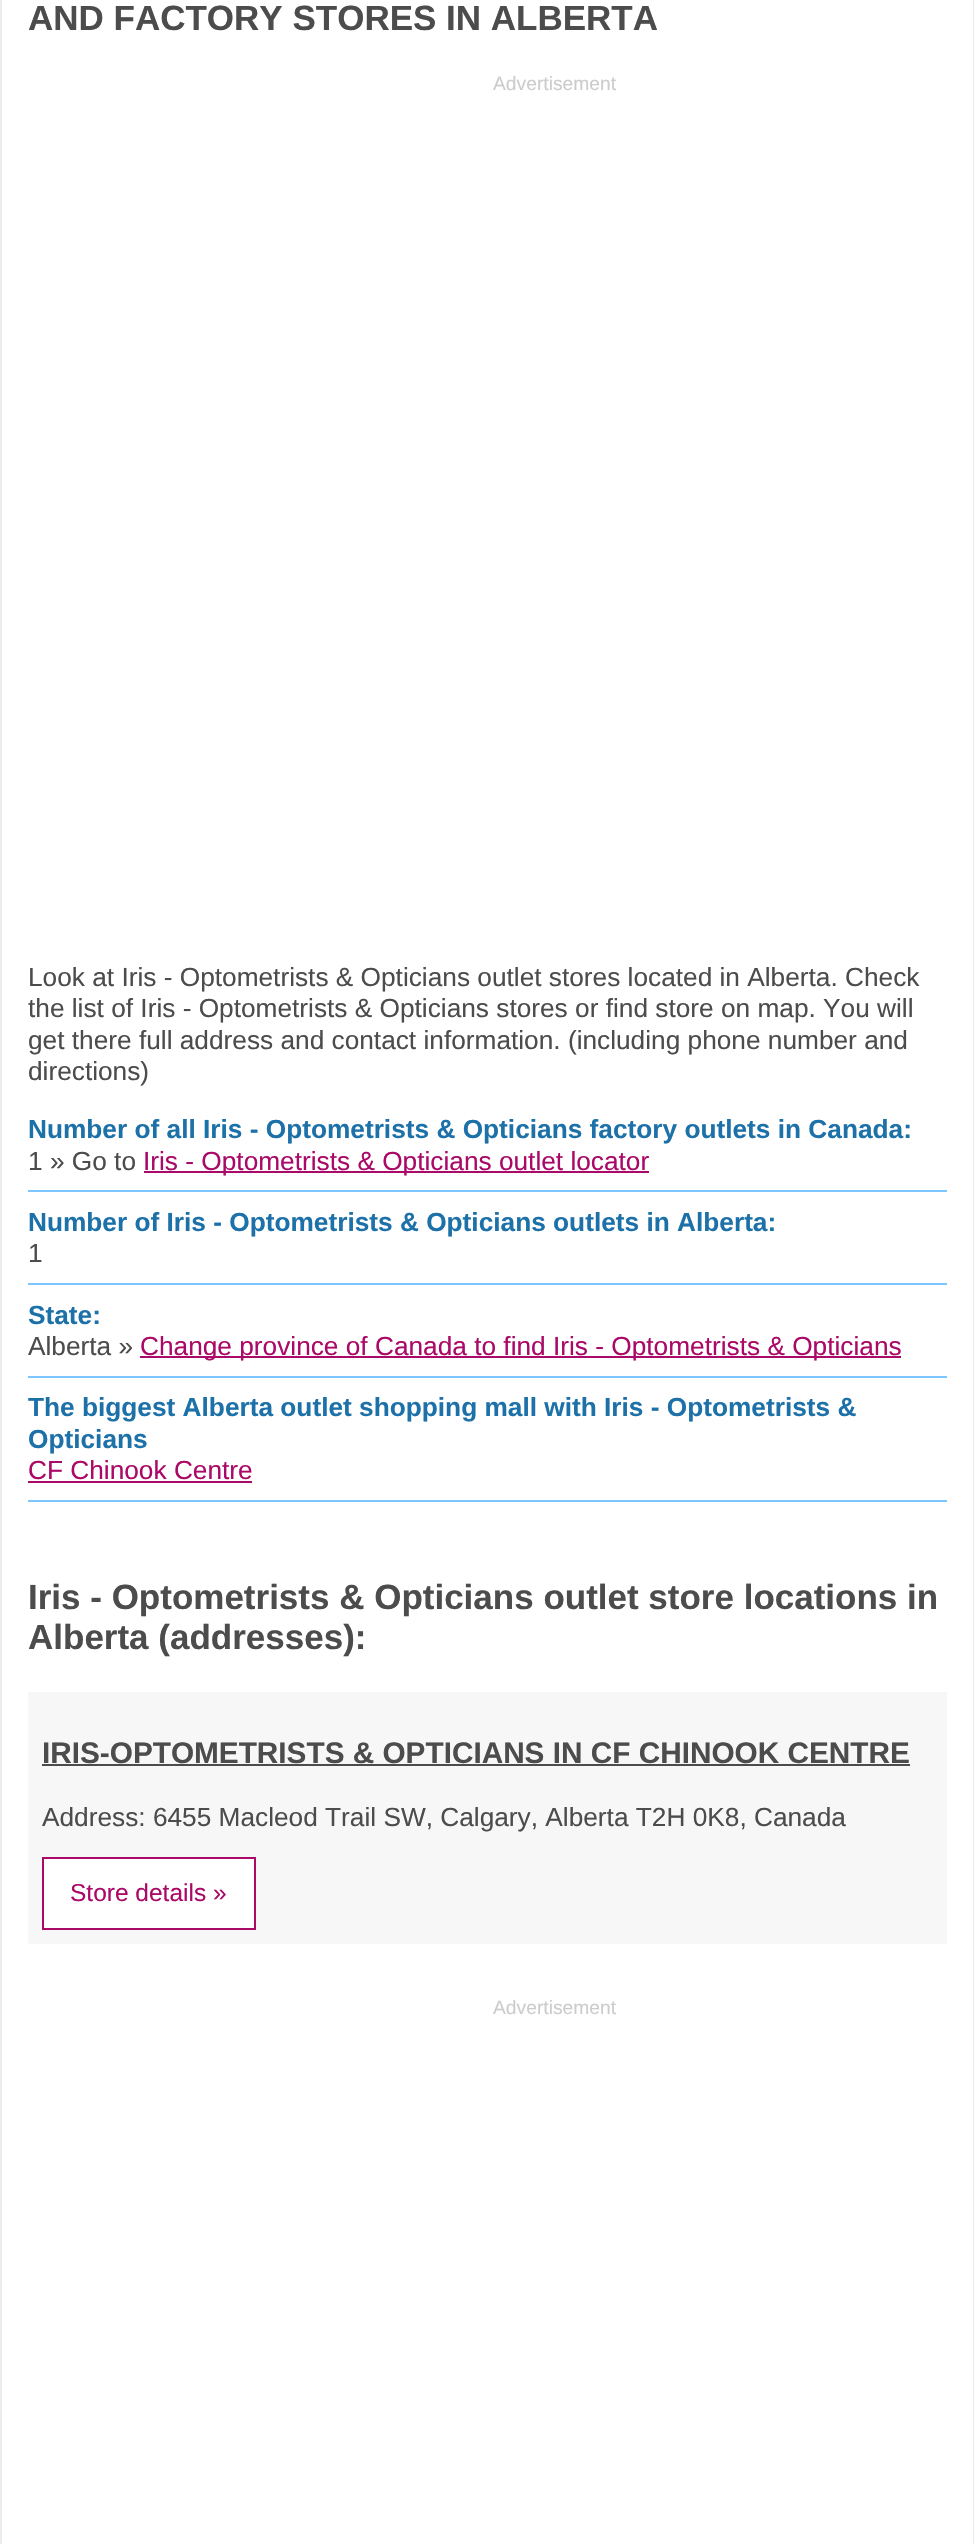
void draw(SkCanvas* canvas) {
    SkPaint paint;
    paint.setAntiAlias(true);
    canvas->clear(0xFFFFFFFF);
    paint.setStyle(SkPaint::kStroke_Style);
    paint.setStrokeWidth(2);
    paint.setColor(0xFFECECEC);
    canvas->drawRect(SkRect::MakeXYWH(1, -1, 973, 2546), paint);
    SkFont font1(fontMgr->matchFamilyStyle("Liberation Sans", SkFontStyle::Bold()), 35);
    font1.setSubpixel(true);
    paint.setStyle(SkPaint::kFill_Style);
    paint.setColor(0xFF4C4C4C);
    canvas->drawString("AND FACTORY STORES IN ALBERTA", 28, 30, font1, paint);
    SkFont font2(fontMgr->matchFamilyStyle("Liberation Sans", SkFontStyle::Normal()), 19.25f);
    font2.setSubpixel(true);
    paint.setColor(0xFFCCCCCC);
    canvas->drawString("Advertisement", 493, 90, font2, paint);
    SkFont font3(fontMgr->matchFamilyStyle("Liberation Sans", SkFontStyle::Normal()), 26.25f);
    font3.setSubpixel(true);
    paint.setColor(0xFF4C4C4C);
    canvas->drawString("Look at Iris - Optometrists & Opticians outlet stores located in Alberta. Check", 28, 986, font3, paint);
    canvas->drawString("the list of Iris - Optometrists & Opticians stores or find store on map. You will", 28, 1017, font3, paint);
    canvas->drawString("get there full address and contact information. (including phone number and", 28, 1049, font3, paint);
    canvas->drawString("directions)", 28, 1080, font3, paint);
    SkFont font4(fontMgr->matchFamilyStyle("Liberation Sans", SkFontStyle::Bold()), 26.25f);
    font4.setSubpixel(true);
    paint.setColor(0xFF1D71A9);
    canvas->drawString("Number of all Iris - Optometrists & Opticians factory outlets in Canada:", 28, 1138, font4, paint);
    paint.setColor(0xFF7CC6FF);
    canvas->drawRect(SkRect::MakeXYWH(28, 1190, 919, 2), paint);
    paint.setColor(0xFF4C4C4C);
    canvas->drawString("1 » Go to", 28, 1170, font3, paint);
    paint.setColor(0xFFAA0968);
    canvas->drawRect(SkRect::MakeXYWH(144, 1171, 505, 2), paint);
    canvas->drawString("Iris - Optometrists & Opticians outlet locator", 143, 1170, font3, paint);
    paint.setColor(0xFF1D71A9);
    canvas->drawString("Number of Iris - Optometrists & Opticians outlets in Alberta:", 28, 1231, font4, paint);
    paint.setColor(0xFF7CC6FF);
    canvas->drawRect(SkRect::MakeXYWH(28, 1283, 919, 2), paint);
    paint.setColor(0xFF4C4C4C);
    canvas->drawString("1", 28, 1262, font3, paint);
    paint.setColor(0xFF1D71A9);
    canvas->drawString("State:", 28, 1324, font4, paint);
    paint.setColor(0xFF7CC6FF);
    canvas->drawRect(SkRect::MakeXYWH(28, 1376, 919, 2), paint);
    paint.setColor(0xFF4C4C4C);
    canvas->drawString("Alberta »", 28, 1355, font3, paint);
    paint.setColor(0xFFAA0968);
    canvas->drawRect(SkRect::MakeXYWH(140, 1356, 761, 2), paint);
    canvas->drawString("Change province of Canada to find Iris - Optometrists & Opticians", 140, 1355, font3, paint);
    paint.setColor(0xFF1D71A9);
    canvas->drawString("The biggest Alberta outlet shopping mall with Iris - Optometrists &", 28, 1416, font4, paint);
    canvas->drawString("Opticians", 28, 1448, font4, paint);
    paint.setColor(0xFF7CC6FF);
    canvas->drawRect(SkRect::MakeXYWH(28, 1500, 919, 2), paint);
    paint.setColor(0xFFAA0968);
    canvas->drawString("CF Chinook Centre", 28, 1479, font3, paint);
    canvas->drawRect(SkRect::MakeXYWH(28, 1481, 224, 2), paint);
    paint.setColor(0xFF4C4C4C);
    canvas->drawString("Iris - Optometrists & Opticians outlet store locations in", 28, 1609, font1, paint);
    canvas->drawString("Alberta (addresses):", 28, 1649, font1, paint);
    paint.setColor(0xFFF7F7F7);
    canvas->drawRect(SkRect::MakeXYWH(28, 1692, 919, 252), paint);
    SkFont font5(fontMgr->matchFamilyStyle("Liberation Sans", SkFontStyle::Bold()), 29.75f);
    font5.setSubpixel(true);
    paint.setColor(0xFF4C4C4C);
    canvas->drawString("IRIS-OPTOMETRISTS & OPTICIANS IN CF CHINOOK CENTRE", 42, 1763, font5, paint);
    canvas->drawRect(SkRect::MakeXYWH(42, 1764, 868, 2), paint);
    canvas->drawString("Address: 6455 Macleod Trail SW, Calgary, Alberta T2H 0K8, Canada", 42, 1826, font3, paint);
    paint.setColor(0xFFFFFFFF);
    canvas->drawRect(SkRect::MakeXYWH(43, 1858, 212, 71), paint);
    paint.setStyle(SkPaint::kStroke_Style);
    paint.setColor(0xFFAA0968);
    canvas->drawRect(SkRect::MakeXYWH(43, 1858, 212, 71), paint);
    SkFont font6(fontMgr->matchFamilyStyle("Liberation Sans", SkFontStyle::Normal()), 24.5f);
    font6.setSubpixel(true);
    paint.setStyle(SkPaint::kFill_Style);
    canvas->drawString("Store details »", 70, 1901, font6, paint);
    paint.setColor(0xFFCCCCCC);
    canvas->drawString("Advertisement", 493, 2014, font2, paint);
}
